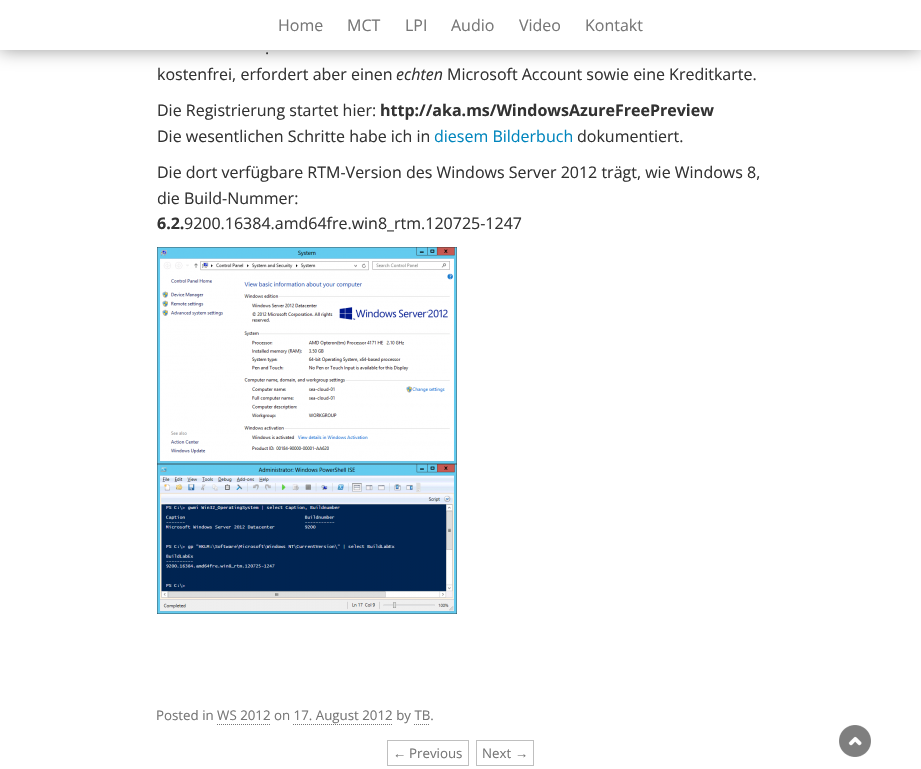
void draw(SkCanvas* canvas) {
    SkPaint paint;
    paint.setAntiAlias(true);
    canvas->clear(0xFFFFFFFF);
    paint.setColor(0x66000000);
    paint.setMaskFilter(SkMaskFilter::MakeBlur(kNormal_SkBlurStyle, 9));
    canvas->drawRect(SkRect::MakeXYWH(0, 0, 921, 50), paint);
    paint.setMaskFilter(nullptr);
    paint.setColor(0xFFFFFFFF);
    canvas->drawRect(SkRect::MakeXYWH(0, 0, 921, 50), paint);
    SkFont font1(fontMgr->matchFamilyStyle("Open Sans", SkFontStyle::Normal()), 16);
    font1.setSubpixel(true);
    paint.setColor(0xFF777777);
    canvas->drawString("Home", 278, 31, font1, paint);
    canvas->drawString("MCT", 347, 31, font1, paint);
    canvas->drawString("LPI", 405, 31, font1, paint);
    canvas->drawString("Audio", 451, 31, font1, paint);
    canvas->drawString("Video", 519, 31, font1, paint);
    canvas->drawString("Kontakt", 585, 31, font1, paint);
    paint.setColor(0xFF333333);
    canvas->drawString(".", 265, 54, font1, paint);
    canvas->drawString("kostenfrei, erfordert aber einen", 157, 80, font1, paint);
    SkFont font2(fontMgr->matchFamilyStyle("Open Sans", SkFontStyle::Italic()), 16);
    font2.setSubpixel(true);
    canvas->drawString("echten", 396, 80, font2, paint);
    canvas->drawString("Microsoft Account sowie eine Kreditkarte.", 447, 80, font1, paint);
    canvas->drawString("Die Registrierung startet hier:", 157, 116, font1, paint);
    SkFont font3(fontMgr->matchFamilyStyle("Open Sans", SkFontStyle::Bold()), 16);
    font3.setSubpixel(true);
    canvas->drawString("http://aka.ms/WindowsAzureFreePreview", 380, 116, font3, paint);
    canvas->drawString("Die wesentlichen Schritte habe ich in", 157, 142, font1, paint);
    paint.setColor(0xFF0085BD);
    canvas->drawString("diesem Bilderbuch", 434, 142, font1, paint);
    paint.setColor(0xFF333333);
    canvas->drawString("dokumentiert.", 577, 142, font1, paint);
    canvas->drawString("Die dort verfügbare RTM-Version des Windows Server 2012 trägt, wie Windows 8,", 157, 178, font1, paint);
    canvas->drawString("die Build-Nummer:", 157, 204, font1, paint);
    canvas->drawString("6.2.", 157, 229, font3, paint);
    canvas->drawString("9200.16384.amd64fre.win8_rtm.120725-1247", 184, 229, font1, paint);
    canvas->drawImageRect(SkImages::DeferredFromEncodedData(SkData::MakeFromFileName("img1.png")), SkRect::MakeXYWH(157, 247, 300, 217), SkSamplingOptions());
    canvas->drawImageRect(SkImages::DeferredFromEncodedData(SkData::MakeFromFileName("img2.png")), SkRect::MakeXYWH(157, 464, 300, 150), SkSamplingOptions());
    SkFont font4(fontMgr->matchFamilyStyle("Open Sans", SkFontStyle::Normal()), 13.3f);
    font4.setSubpixel(true);
    paint.setColor(0xFF777777);
    canvas->drawString("Posted in WS 2012 on 17. August 2012 by TB.", 156, 720, font4, paint);
    paint.setStyle(SkPaint::kStroke_Style);
    paint.setStrokeWidth(1);
    paint.setPathEffect(SkDashPathEffect::Make({{1, 1}}, 0));
    canvas->drawPath(SkPathBuilder().moveTo(217, 724.5f).lineTo(270, 724.5f).detach(), paint);
    paint.setPathEffect(nullptr);
    paint.setPathEffect(SkDashPathEffect::Make({{1, 1}}, 0));
    canvas->drawPath(SkPathBuilder().moveTo(293, 724.5f).lineTo(393, 724.5f).detach(), paint);
    paint.setPathEffect(nullptr);
    paint.setPathEffect(SkDashPathEffect::Make({{1, 1}}, 0));
    canvas->drawPath(SkPathBuilder().moveTo(414, 724.5f).lineTo(430, 724.5f).detach(), paint);
    paint.setPathEffect(nullptr);
    paint.setColor(0xFFBFBFBF);
    canvas->drawRect(SkRect::MakeXYWH(387.5f, 740.5f, 81, 25), paint);
    SkFont font5(fontMgr->matchFamilyStyle("Liberation Sans", SkFontStyle::Normal()), 13.3f);
    font5.setSubpixel(true);
    paint.setStyle(SkPaint::kFill_Style);
    paint.setColor(0xFF777777);
    canvas->drawString("←", 393, 758, font5, paint);
    canvas->drawString("Previous", 409, 758, font4, paint);
    paint.setStyle(SkPaint::kStroke_Style);
    paint.setColor(0xFFBFBFBF);
    canvas->drawRect(SkRect::MakeXYWH(476.5f, 740.5f, 57, 25), paint);
    paint.setStyle(SkPaint::kFill_Style);
    paint.setColor(0xFF777777);
    canvas->drawString("Next", 482, 758, font4, paint);
    canvas->drawString("→", 515, 758, font5, paint);
    canvas->drawImageRect(SkImages::DeferredFromEncodedData(SkData::MakeFromFileName("img3.png")), SkRect::MakeXYWH(839, 725, 32, 32), SkSamplingOptions());
}
